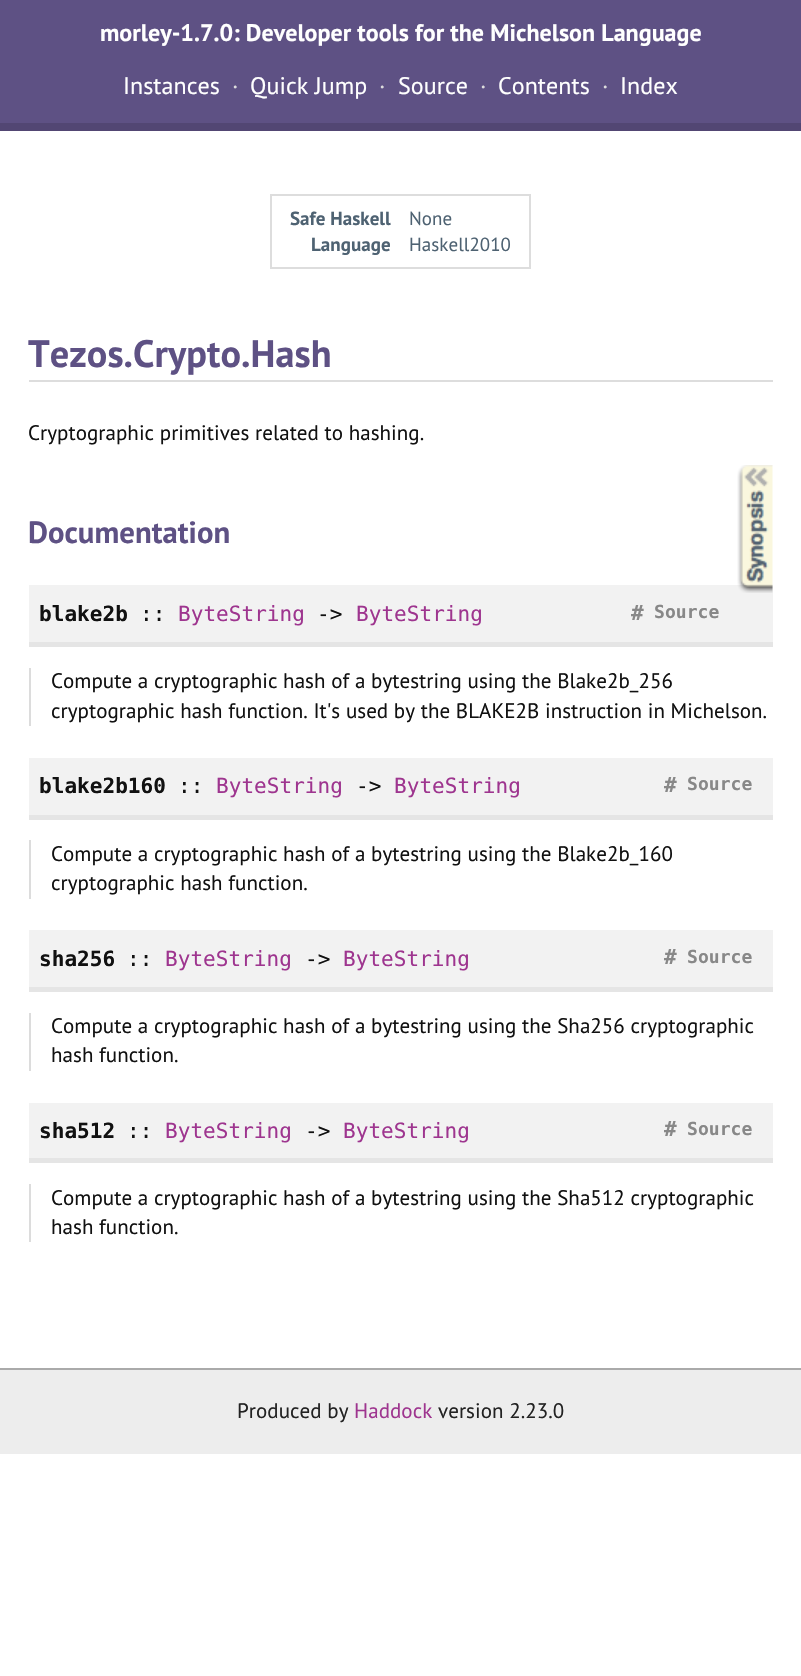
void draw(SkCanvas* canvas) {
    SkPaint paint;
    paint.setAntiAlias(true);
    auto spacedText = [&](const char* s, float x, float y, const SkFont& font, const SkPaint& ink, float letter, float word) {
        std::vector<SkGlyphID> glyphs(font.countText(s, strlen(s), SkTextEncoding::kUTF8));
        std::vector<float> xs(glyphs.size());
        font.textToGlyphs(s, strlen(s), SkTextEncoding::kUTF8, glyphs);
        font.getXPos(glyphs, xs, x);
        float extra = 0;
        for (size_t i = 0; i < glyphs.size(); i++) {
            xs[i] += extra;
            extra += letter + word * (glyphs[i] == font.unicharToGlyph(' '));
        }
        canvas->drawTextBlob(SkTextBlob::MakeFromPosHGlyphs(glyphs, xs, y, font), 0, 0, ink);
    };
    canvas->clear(0xFFFFFFFF);
    paint.setColor(0xFF5E5184);
    canvas->drawRect(SkRect::MakeXYWH(0, 0, 801, 123), paint);
    paint.setColor(0xFF524673);
    canvas->drawRect(SkRect::MakeXYWH(0, 123, 801, 8), paint);
    SkFont font1(fontMgr->matchFamilyStyle("PT Sans", SkFontStyle::Bold()), 24);
    font1.setSubpixel(true);
    paint.setColor(0xFFFFFFFF);
    spacedText("morley-1.7.0: Developer tools for the Michelson Language", 100, 41, font1, paint, 0.05f, 0);
    SkFont font2(fontMgr->matchFamilyStyle("PT Sans", SkFontStyle::Normal()), 24);
    font2.setSubpixel(true);
    spacedText("Instances", 123, 94, font2, paint, 0.05f, 0);
    paint.setColor(0xFFDDDDDD);
    spacedText("·", 232, 94, font2, paint, 0.05f, 0);
    paint.setColor(0xFFFFFFFF);
    spacedText("Quick Jump", 250, 94, font2, paint, 0.05f, 0);
    paint.setColor(0xFFDDDDDD);
    spacedText("·", 379, 94, font2, paint, 0.05f, 0);
    paint.setColor(0xFFFFFFFF);
    spacedText("Source", 398, 94, font2, paint, 0.05f, 0);
    paint.setColor(0xFFDDDDDD);
    spacedText("·", 480, 94, font2, paint, 0.05f, 0);
    paint.setColor(0xFFFFFFFF);
    spacedText("Contents", 498, 94, font2, paint, 0.05f, 0);
    paint.setColor(0xFFDDDDDD);
    spacedText("·", 602, 94, font2, paint, 0.05f, 0);
    paint.setColor(0xFFFFFFFF);
    spacedText("Index", 620, 94, font2, paint, 0.05f, 0);
    paint.setStyle(SkPaint::kStroke_Style);
    paint.setStrokeWidth(2);
    paint.setColor(0xFFDDDDDD);
    canvas->drawRect(SkRect::MakeXYWH(271, 195, 259, 73), paint);
    SkFont font3(fontMgr->matchFamilyStyle("PT Sans", SkFontStyle::Bold()), 19);
    font3.setSubpixel(true);
    paint.setStyle(SkPaint::kFill_Style);
    paint.setColor(0xFF4E6272);
    spacedText("Safe Haskell", 290, 225, font3, paint, 0.05f, 0);
    SkFont font4(fontMgr->matchFamilyStyle("PT Sans", SkFontStyle::Normal()), 19);
    font4.setSubpixel(true);
    spacedText("None", 409, 225, font4, paint, 0.05f, 0);
    spacedText("Language", 311, 251, font3, paint, 0.05f, 0);
    spacedText("Haskell2010", 409, 251, font4, paint, 0.05f, 0);
    paint.setColor(0xFFDDDDDD);
    canvas->drawRect(SkRect::MakeXYWH(29, 380, 744, 2), paint);
    SkFont font5(fontMgr->matchFamilyStyle("PT Sans", SkFontStyle::Bold()), 38.25f);
    font5.setSubpixel(true);
    paint.setColor(0xFF5E5184);
    spacedText("Tezos.Crypto.Hash", 28, 367, font5, paint, 0.05f, 0);
    SkFont font6(fontMgr->matchFamilyStyle("PT Sans", SkFontStyle::Normal()), 21);
    font6.setSubpixel(true);
    paint.setColor(0xFF111111);
    spacedText("Cryptographic primitives related to hashing.", 28, 440, font6, paint, 0.05f, 0);
    paint.setColor(0xFFF2F2F2);
    canvas->drawRect(SkRect::MakeXYWH(29, 585, 744, 57), paint);
    canvas->drawImageRect(SkImages::DeferredFromEncodedData(SkData::MakeFromFileName("img1.png")), SkRect::MakeXYWH(737, 465, 36, 128), SkSamplingOptions());
    SkFont font7(fontMgr->matchFamilyStyle("PT Sans", SkFontStyle::Bold()), 30.75f);
    font7.setSubpixel(true);
    paint.setColor(0xFF5E5184);
    spacedText("Documentation", 28, 543, font7, paint, 0.05f, 0);
    paint.setColor(0xFFE5E5E5);
    canvas->drawRect(SkRect::MakeXYWH(29, 642, 744, 5), paint);
    SkFont font8(fontMgr->matchFamilyStyle("DejaVu Sans Mono", SkFontStyle::Bold()), 21);
    font8.setSubpixel(true);
    paint.setColor(0xFF111111);
    spacedText("blake2b", 39, 621, font8, paint, 0.05f, 0);
    SkFont font9(fontMgr->matchFamilyStyle("DejaVu Sans Mono", SkFontStyle::Normal()), 21);
    font9.setSubpixel(true);
    spacedText("::", 140, 621, font9, paint, 0.05f, 0);
    paint.setColor(0xFF9E358F);
    spacedText("ByteString", 178, 621, font9, paint, 0.05f, 0);
    paint.setColor(0xFF111111);
    spacedText("->", 317, 621, font9, paint, 0.05f, 0);
    paint.setColor(0xFF9E358F);
    spacedText("ByteString", 356, 621, font9, paint, 0.05f, 0);
    paint.setColor(0xFF888888);
    spacedText("#", 631, 620, font8, paint, 0.05f, 0);
    SkFont font10(fontMgr->matchFamilyStyle("DejaVu Sans Mono", SkFontStyle::Bold()), 18);
    font10.setSubpixel(true);
    spacedText("Source", 654, 618, font10, paint, 0.05f, 0);
    paint.setColor(0xFFDCDCDC);
    canvas->drawRect(SkRect::MakeXYWH(29, 668, 2, 58), paint);
    paint.setColor(0xFF111111);
    spacedText("Compute a cryptographic hash of a bytestring using the Blake2b_256", 51, 688, font6, paint, 0.05f, 0);
    spacedText("cryptographic hash function. It's used by the BLAKE2B instruction in Michelson.", 51, 718, font6, paint, 0.05f, 0);
    paint.setColor(0xFFF2F2F2);
    canvas->drawRect(SkRect::MakeXYWH(29, 758, 744, 57), paint);
    paint.setColor(0xFFE5E5E5);
    canvas->drawRect(SkRect::MakeXYWH(29, 815, 744, 5), paint);
    paint.setColor(0xFF111111);
    spacedText("blake2b160", 39, 793, font8, paint, 0.05f, 0);
    spacedText("::", 178, 793, font9, paint, 0.05f, 0);
    paint.setColor(0xFF9E358F);
    spacedText("ByteString", 216, 793, font9, paint, 0.05f, 0);
    paint.setColor(0xFF111111);
    spacedText("->", 356, 793, font9, paint, 0.05f, 0);
    paint.setColor(0xFF9E358F);
    spacedText("ByteString", 394, 793, font9, paint, 0.05f, 0);
    paint.setColor(0xFF888888);
    spacedText("#", 664, 792, font8, paint, 0.05f, 0);
    spacedText("Source", 687, 790, font10, paint, 0.05f, 0);
    paint.setColor(0xFFDCDCDC);
    canvas->drawRect(SkRect::MakeXYWH(29, 840, 2, 59), paint);
    paint.setColor(0xFF111111);
    spacedText("Compute a cryptographic hash of a bytestring using the Blake2b_160", 51, 861, font6, paint, 0.05f, 0);
    spacedText("cryptographic hash function.", 51, 890, font6, paint, 0.05f, 0);
    paint.setColor(0xFFF2F2F2);
    canvas->drawRect(SkRect::MakeXYWH(29, 930, 744, 57), paint);
    paint.setColor(0xFFE5E5E5);
    canvas->drawRect(SkRect::MakeXYWH(29, 987, 744, 5), paint);
    paint.setColor(0xFF111111);
    spacedText("sha256", 39, 966, font8, paint, 0.05f, 0);
    spacedText("::", 127, 966, font9, paint, 0.05f, 0);
    paint.setColor(0xFF9E358F);
    spacedText("ByteString", 165, 966, font9, paint, 0.05f, 0);
    paint.setColor(0xFF111111);
    spacedText("->", 305, 966, font9, paint, 0.05f, 0);
    paint.setColor(0xFF9E358F);
    spacedText("ByteString", 343, 966, font9, paint, 0.05f, 0);
    paint.setColor(0xFF888888);
    spacedText("#", 664, 964, font8, paint, 0.05f, 0);
    spacedText("Source", 687, 963, font10, paint, 0.05f, 0);
    paint.setColor(0xFFDCDCDC);
    canvas->drawRect(SkRect::MakeXYWH(29, 1013, 2, 58), paint);
    paint.setColor(0xFF111111);
    spacedText("Compute a cryptographic hash of a bytestring using the Sha256 cryptographic", 51, 1033, font6, paint, 0.05f, 0);
    spacedText("hash function.", 51, 1062, font6, paint, 0.05f, 0);
    paint.setColor(0xFFF2F2F2);
    canvas->drawRect(SkRect::MakeXYWH(29, 1103, 744, 55), paint);
    paint.setColor(0xFFE5E5E5);
    canvas->drawRect(SkRect::MakeXYWH(29, 1158, 744, 5), paint);
    paint.setColor(0xFF111111);
    spacedText("sha512", 39, 1138, font8, paint, 0.05f, 0);
    spacedText("::", 127, 1138, font9, paint, 0.05f, 0);
    paint.setColor(0xFF9E358F);
    spacedText("ByteString", 165, 1138, font9, paint, 0.05f, 0);
    paint.setColor(0xFF111111);
    spacedText("->", 305, 1138, font9, paint, 0.05f, 0);
    paint.setColor(0xFF9E358F);
    spacedText("ByteString", 343, 1138, font9, paint, 0.05f, 0);
    paint.setColor(0xFF888888);
    spacedText("#", 664, 1136, font8, paint, 0.05f, 0);
    spacedText("Source", 687, 1135, font10, paint, 0.05f, 0);
    paint.setColor(0xFFDCDCDC);
    canvas->drawRect(SkRect::MakeXYWH(29, 1184, 2, 58), paint);
    paint.setColor(0xFF111111);
    spacedText("Compute a cryptographic hash of a bytestring using the Sha512 cryptographic", 51, 1205, font6, paint, 0.05f, 0);
    spacedText("hash function.", 51, 1234, font6, paint, 0.05f, 0);
    paint.setColor(0xFFEDEDED);
    canvas->drawRect(SkRect::MakeXYWH(0, 1370, 801, 84), paint);
    paint.setColor(0xFFAAAAAA);
    canvas->drawRect(SkRect::MakeXYWH(0, 1368, 801, 2), paint);
    paint.setColor(0xFF222222);
    spacedText("Produced by", 237, 1418, font6, paint, 0.05f, 0);
    paint.setColor(0xFF9E358F);
    spacedText("Haddock", 354, 1418, font6, paint, 0.05f, 0);
    paint.setColor(0xFF222222);
    spacedText("version 2.23.0", 438, 1418, font6, paint, 0.05f, 0);
}
